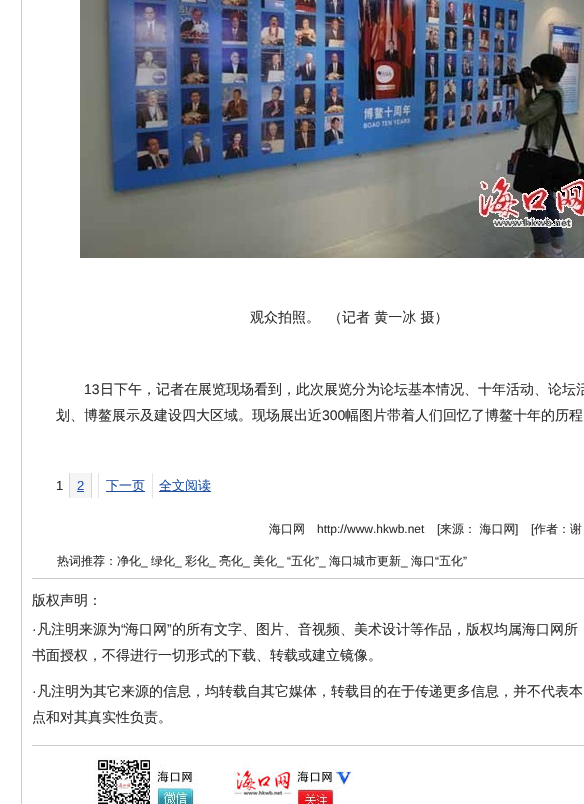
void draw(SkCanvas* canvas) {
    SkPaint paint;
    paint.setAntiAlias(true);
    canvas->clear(0xFFFFFFFF);
    paint.setStyle(SkPaint::kStroke_Style);
    paint.setStrokeWidth(1);
    paint.setColor(0xFFCDCDCD);
    canvas->drawRect(SkRect::MakeXYWH(21.5f, -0.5f, 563, 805), paint);
    canvas->drawImageRect(SkImages::DeferredFromEncodedData(SkData::MakeFromFileName("img1.png")), SkRect::MakeXYWH(80, 0, 504, 258), SkSamplingOptions());
    SkFont font1(fontMgr->matchFamilyStyle("WenQuanYi Zen Hei", SkFontStyle(500, SkFontStyle::kNormal_Width, SkFontStyle::kUpright_Slant)), 14);
    font1.setSubpixel(true);
    paint.setStyle(SkPaint::kFill_Style);
    paint.setColor(0xFF303030);
    canvas->drawString("观众拍照。", 250, 322, font1, paint);
    canvas->drawString("（记者 黄一冰 摄）", 328, 322, font1, paint);
    SkFont font2(fontMgr->matchFamilyStyle("Liberation Sans", SkFontStyle::Normal()), 14);
    font2.setSubpixel(true);
    canvas->drawString("13", 84, 394, font2, paint);
    canvas->drawString("日下午，记者在展览现场看到，此次展览分为论坛基本情况、十年活动、论坛活", 100, 394, font1, paint);
    canvas->drawString("划、博鳌展示及建设四大区域。现场展出近", 56, 420, font1, paint);
    canvas->drawString("300", 322, 420, font2, paint);
    canvas->drawString("幅图片带着人们回忆了博鳌十年的历程", 345, 420, font1, paint);
    SkFont font3(fontMgr->matchFamilyStyle("Liberation Sans", SkFontStyle::Normal()), 13);
    font3.setSubpixel(true);
    canvas->drawString("1", 56, 490, font3, paint);
    paint.setColor(0xFFF5F5F5);
    canvas->drawRect(SkRect::MakeXYWH(70, 473, 21, 25), paint);
    canvas->save();
    canvas->clipRect(SkRect::MakeXYWH(69, 473, 23, 25));
    paint.setStyle(SkPaint::kStroke_Style);
    paint.setColor(0xFFD7D7D7);
    canvas->drawRoundRect(SkRect::MakeXYWH(69.5f, 470.5f, 22, 30), 1.5f, 1.5f, paint);
    canvas->restore();
    paint.setStyle(SkPaint::kFill_Style);
    paint.setColor(0xFF1E50A2);
    canvas->drawString("2", 77, 490, font3, paint);
    canvas->drawRect(SkRect::MakeXYWH(77, 491, 7, 1), paint);
    canvas->save();
    canvas->clipRect(SkRect::MakeXYWH(98, 473, 55, 25));
    paint.setStyle(SkPaint::kStroke_Style);
    paint.setColor(0xFFE4E4E4);
    canvas->drawRoundRect(SkRect::MakeXYWH(98.5f, 470.5f, 54, 30), 1.5f, 1.5f, paint);
    canvas->restore();
    paint.setStyle(SkPaint::kFill_Style);
    paint.setColor(0xFF1E50A2);
    canvas->drawRect(SkRect::MakeXYWH(106, 491, 39, 1), paint);
    SkFont font4(fontMgr->matchFamilyStyle("WenQuanYi Zen Hei", SkFontStyle(500, SkFontStyle::kNormal_Width, SkFontStyle::kUpright_Slant)), 13);
    font4.setSubpixel(true);
    canvas->drawString("下一页", 106, 490, font4, paint);
    canvas->drawRect(SkRect::MakeXYWH(159, 491, 52, 1), paint);
    canvas->drawString("全文阅读", 159, 490, font4, paint);
    SkFont font5(fontMgr->matchFamilyStyle("WenQuanYi Zen Hei", SkFontStyle(500, SkFontStyle::kNormal_Width, SkFontStyle::kUpright_Slant)), 12);
    font5.setSubpixel(true);
    paint.setColor(0xFF303030);
    canvas->drawString("海口网", 269, 533, font5, paint);
    SkFont font6(fontMgr->matchFamilyStyle("Liberation Sans", SkFontStyle::Normal()), 12);
    font6.setSubpixel(true);
    canvas->drawString("http://www.hkwb.net", 317, 533, font6, paint);
    canvas->drawString("[", 437, 533, font6, paint);
    canvas->drawString("来源： 海口网", 440, 533, font5, paint);
    canvas->drawString("]", 515, 533, font6, paint);
    canvas->drawString("[", 531, 533, font6, paint);
    canvas->drawString("作者：谢", 534, 533, font5, paint);
    canvas->drawString("热词推荐：净化", 57, 565, font5, paint);
    canvas->drawString("绿化", 151, 565, font5, paint);
    canvas->drawString("彩化", 185, 565, font5, paint);
    canvas->drawString("亮化", 219, 565, font5, paint);
    canvas->drawString("美化", 253, 565, font5, paint);
    canvas->drawString("_ “", 277, 565, font6, paint);
    canvas->drawString("五化", 291, 565, font5, paint);
    canvas->drawString("”_", 315, 565, font6, paint);
    canvas->drawString("海口城市更新", 329, 565, font5, paint);
    canvas->drawString("海口", 411, 565, font5, paint);
    canvas->drawString("“", 435, 565, font6, paint);
    canvas->drawString("五化", 439, 565, font5, paint);
    canvas->drawString("”", 463, 565, font6, paint);
    canvas->drawString("_", 141, 565, font6, paint);
    canvas->drawString("_", 175, 565, font6, paint);
    canvas->drawString("_", 209, 565, font6, paint);
    canvas->drawString("_", 243, 565, font6, paint);
    canvas->drawString("_", 401, 565, font6, paint);
    paint.setColor(0xFFCCCCCC);
    canvas->drawRect(SkRect::MakeXYWH(32, 578, 552, 1), paint);
    canvas->drawRect(SkRect::MakeXYWH(32, 745, 552, 1), paint);
    paint.setColor(0xFF303030);
    canvas->drawString("版权声明：", 32, 605, font1, paint);
    canvas->drawString("凡注明来源为", 37, 634, font1, paint);
    canvas->drawString("“", 121, 634, font2, paint);
    canvas->drawString("海口网", 125, 634, font1, paint);
    canvas->drawString("”", 167, 634, font2, paint);
    canvas->drawString("的所有文字、图片、音视频、美术设计等作品，版权均属海口网所", 172, 634, font1, paint);
    canvas->drawString("·", 32, 634, font2, paint);
    canvas->drawString("书面授权，不得进行一切形式的下载、转载或建立镜像。", 32, 660, font1, paint);
    canvas->drawString("·", 32, 696, font2, paint);
    canvas->drawString("凡注明为其它来源的信息，均转载自其它媒体，转载目的在于传递更多信息，并不代表本", 37, 696, font1, paint);
    canvas->drawString("点和对其真实性负责。", 32, 722, font1, paint);
    canvas->drawImageRect(SkImages::DeferredFromEncodedData(SkData::MakeFromFileName("img2.png")), SkRect::MakeXYWH(94, 756, 104, 48), SkSamplingOptions());
    canvas->drawImageRect(SkImages::DeferredFromEncodedData(SkData::MakeFromFileName("img3.png")), SkRect::MakeXYWH(234, 764, 120, 40), SkSamplingOptions());
}
